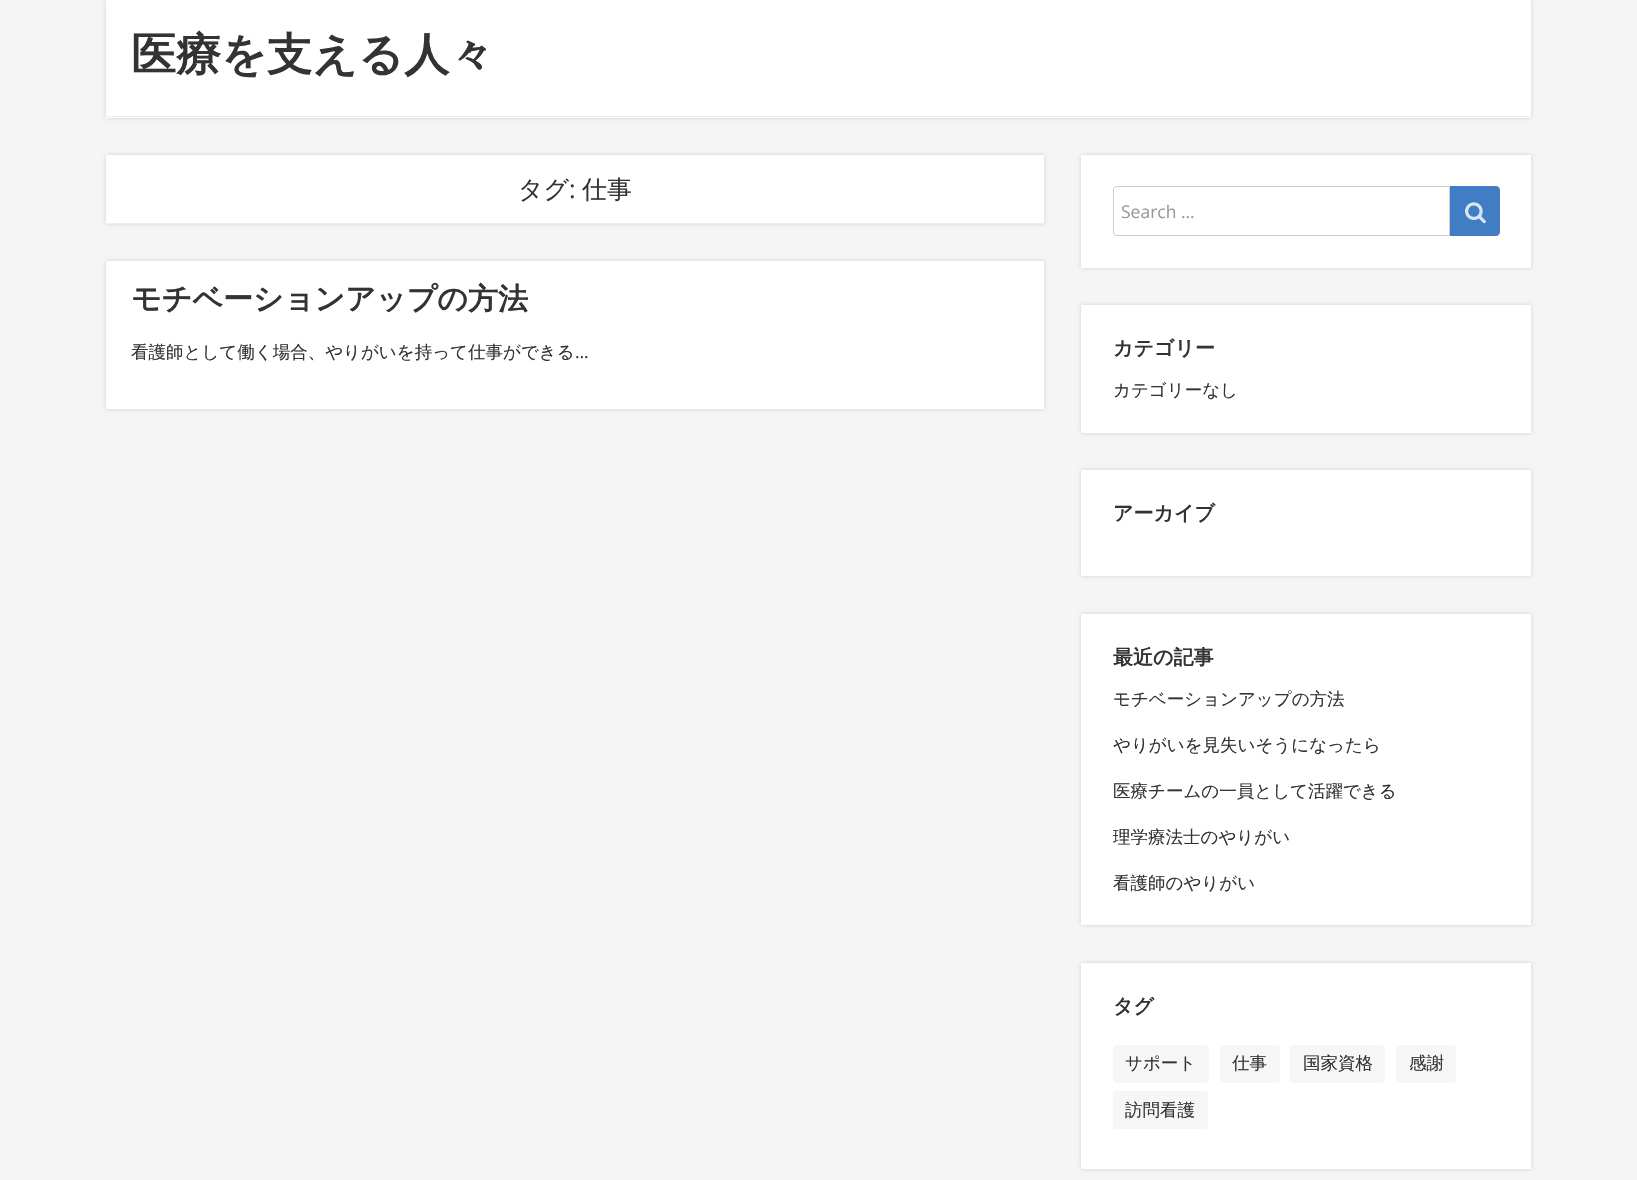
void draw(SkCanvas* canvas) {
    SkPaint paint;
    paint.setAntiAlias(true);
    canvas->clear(0xFFF5F5F5);
    paint.setColor(0x26000000);
    paint.setMaskFilter(SkMaskFilter::MakeBlur(kNormal_SkBlurStyle, 2));
    canvas->drawRect(SkRect::MakeXYWH(106, 0, 1425, 118), paint);
    paint.setMaskFilter(nullptr);
    paint.setColor(0xFFFFFFFF);
    canvas->drawRect(SkRect::MakeXYWH(106, 0, 1425, 118), paint);
    SkFont font1(fontMgr->matchFamilyStyle("WenQuanYi Zen Hei", SkFontStyle::Bold()), 45);
    font1.setSubpixel(true);
    paint.setColor(0xFF333333);
    canvas->drawString("医療を支える人々", 131, 70, font1, paint);
    paint.setColor(0xFFEEEEEE);
    canvas->drawRect(SkRect::MakeXYWH(106, 116, 1425, 1), paint);
    paint.setColor(0x26000000);
    paint.setMaskFilter(SkMaskFilter::MakeBlur(kNormal_SkBlurStyle, 2));
    canvas->drawRect(SkRect::MakeXYWH(106, 155, 938, 69), paint);
    paint.setMaskFilter(nullptr);
    paint.setColor(0xFFFFFFFF);
    canvas->drawRect(SkRect::MakeXYWH(106, 155, 938, 68), paint);
    paint.setColor(0xFFEEEEEE);
    canvas->drawRect(SkRect::MakeXYWH(106, 223, 938, 1), paint);
    SkFont font2(fontMgr->matchFamilyStyle("WenQuanYi Zen Hei", SkFontStyle(500, SkFontStyle::kNormal_Width, SkFontStyle::kUpright_Slant)), 25);
    font2.setSubpixel(true);
    paint.setColor(0xFF333333);
    canvas->drawString("タグ", 518, 198, font2, paint);
    SkFont font3(fontMgr->matchFamilyStyle("Open Sans", SkFontStyle::Normal()), 25);
    font3.setSubpixel(true);
    canvas->drawString(":", 569, 198, font3, paint);
    canvas->drawString("仕事", 582, 198, font2, paint);
    paint.setColor(0x26000000);
    paint.setMaskFilter(SkMaskFilter::MakeBlur(kNormal_SkBlurStyle, 2));
    canvas->drawRect(SkRect::MakeXYWH(106, 261, 938, 148), paint);
    paint.setMaskFilter(nullptr);
    paint.setColor(0xFFFFFFFF);
    canvas->drawRect(SkRect::MakeXYWH(106, 261, 938, 148), paint);
    SkFont font4(fontMgr->matchFamilyStyle("WenQuanYi Zen Hei", SkFontStyle::Bold()), 30);
    font4.setSubpixel(true);
    paint.setColor(0xFF333333);
    canvas->drawString("モチベーションアップの方法", 131, 309, font4, paint);
    SkFont font5(fontMgr->matchFamilyStyle("WenQuanYi Zen Hei", SkFontStyle(500, SkFontStyle::kNormal_Width, SkFontStyle::kUpright_Slant)), 17.5f);
    font5.setSubpixel(true);
    canvas->drawString("看護師として働く場合、やりがいを持って仕事ができる", 131, 358, font5, paint);
    SkFont font6(fontMgr->matchFamilyStyle("Open Sans", SkFontStyle::Normal()), 17.5f);
    font6.setSubpixel(true);
    canvas->drawString("…", 575, 358, font6, paint);
    paint.setColor(0x26000000);
    paint.setMaskFilter(SkMaskFilter::MakeBlur(kNormal_SkBlurStyle, 2));
    canvas->drawRect(SkRect::MakeXYWH(1081, 155, 450, 113), paint);
    paint.setMaskFilter(nullptr);
    paint.setColor(0xFFFFFFFF);
    canvas->drawRect(SkRect::MakeXYWH(1081, 155, 450, 113), paint);
    paint.setStyle(SkPaint::kStroke_Style);
    paint.setStrokeWidth(1);
    paint.setColor(0xFFCCCCCC);
    canvas->drawPath(SkPathBuilder().moveTo(1117, 186.5f).lineTo(1449.5f, 186.5f).lineTo(1449.5f, 235.5f).lineTo(1117, 235.5f).cubicTo(1115, 235.5f, 1113.5f, 234, 1113.5f, 232).lineTo(1113.5f, 190).cubicTo(1113.5f, 188, 1115, 186.5f, 1117, 186.5f).close().detach(), paint);
    paint.setStyle(SkPaint::kFill_Style);
    paint.setColor(0xFF999999);
    canvas->drawString("Search …", 1121, 218, font6, paint);
    paint.setColor(0xFF407DC5);
    canvas->drawPath(SkPathBuilder().moveTo(1450, 186).lineTo(1496, 186).cubicTo(1498, 186, 1500, 188, 1500, 190).lineTo(1500, 232).cubicTo(1500, 234, 1498, 236, 1496, 236).lineTo(1450, 236).close().detach(), paint);
    canvas->drawImageRect(SkImages::DeferredFromEncodedData(SkData::MakeFromFileName("img1.png")), SkRect::MakeXYWH(1465, 202, 21, 22), SkSamplingOptions());
    paint.setColor(0x26000000);
    paint.setMaskFilter(SkMaskFilter::MakeBlur(kNormal_SkBlurStyle, 2));
    canvas->drawRect(SkRect::MakeXYWH(1081, 305, 450, 128), paint);
    paint.setMaskFilter(nullptr);
    paint.setColor(0xFFFFFFFF);
    canvas->drawRect(SkRect::MakeXYWH(1081, 305, 450, 128), paint);
    SkFont font7(fontMgr->matchFamilyStyle("WenQuanYi Zen Hei", SkFontStyle::Bold()), 20);
    font7.setSubpixel(true);
    paint.setColor(0xFF333333);
    canvas->drawString("カテゴリー", 1113, 355, font7, paint);
    canvas->drawString("カテゴリーなし", 1113, 396, font5, paint);
    paint.setColor(0x26000000);
    paint.setMaskFilter(SkMaskFilter::MakeBlur(kNormal_SkBlurStyle, 2));
    canvas->drawRect(SkRect::MakeXYWH(1081, 470, 450, 106), paint);
    paint.setMaskFilter(nullptr);
    paint.setColor(0xFFFFFFFF);
    canvas->drawRect(SkRect::MakeXYWH(1081, 470, 450, 106), paint);
    paint.setColor(0xFF333333);
    canvas->drawString("アーカイブ", 1113, 520, font7, paint);
    paint.setColor(0x26000000);
    paint.setMaskFilter(SkMaskFilter::MakeBlur(kNormal_SkBlurStyle, 2));
    canvas->drawRect(SkRect::MakeXYWH(1081, 614, 450, 311), paint);
    paint.setMaskFilter(nullptr);
    paint.setColor(0xFFFFFFFF);
    canvas->drawRect(SkRect::MakeXYWH(1081, 614, 450, 311), paint);
    paint.setColor(0xFF333333);
    canvas->drawString("最近の記事", 1113, 664, font7, paint);
    canvas->drawString("モチベーションアップの方法", 1113, 705, font5, paint);
    canvas->drawString("やりがいを見失いそうになったら", 1113, 751, font5, paint);
    canvas->drawString("医療チームの一員として活躍できる", 1113, 797, font5, paint);
    canvas->drawString("理学療法士のやりがい", 1113, 843, font5, paint);
    canvas->drawString("看護師のやりがい", 1113, 889, font5, paint);
    paint.setColor(0x26000000);
    paint.setMaskFilter(SkMaskFilter::MakeBlur(kNormal_SkBlurStyle, 2));
    canvas->drawRect(SkRect::MakeXYWH(1081, 963, 450, 206), paint);
    paint.setMaskFilter(nullptr);
    paint.setColor(0xFFFFFFFF);
    canvas->drawRect(SkRect::MakeXYWH(1081, 963, 450, 206), paint);
    paint.setColor(0xFF333333);
    canvas->drawString("タグ", 1113, 1013, font7, paint);
    paint.setColor(0xFFF6F6F6);
    canvas->drawRoundRect(SkRect::MakeXYWH(1113, 1045, 96, 38), 4, 4, paint);
    paint.setColor(0xFF333333);
    canvas->drawString("サポート", 1125, 1069, font5, paint);
    paint.setColor(0xFFF6F6F6);
    canvas->drawRoundRect(SkRect::MakeXYWH(1220, 1045, 60, 38), 4, 4, paint);
    paint.setColor(0xFF333333);
    canvas->drawString("仕事", 1232, 1069, font5, paint);
    paint.setColor(0xFFF6F6F6);
    canvas->drawRoundRect(SkRect::MakeXYWH(1290, 1045, 95, 38), 4, 4, paint);
    paint.setColor(0xFF333333);
    canvas->drawString("国家資格", 1303, 1069, font5, paint);
    paint.setColor(0xFFF6F6F6);
    canvas->drawRoundRect(SkRect::MakeXYWH(1396, 1045, 60, 38), 4, 4, paint);
    paint.setColor(0xFF333333);
    canvas->drawString("感謝", 1409, 1069, font5, paint);
    paint.setColor(0xFFF6F6F6);
    canvas->drawRoundRect(SkRect::MakeXYWH(1113, 1091, 95, 38), 4, 4, paint);
    paint.setColor(0xFF333333);
    canvas->drawString("訪問看護", 1125, 1116, font5, paint);
}
